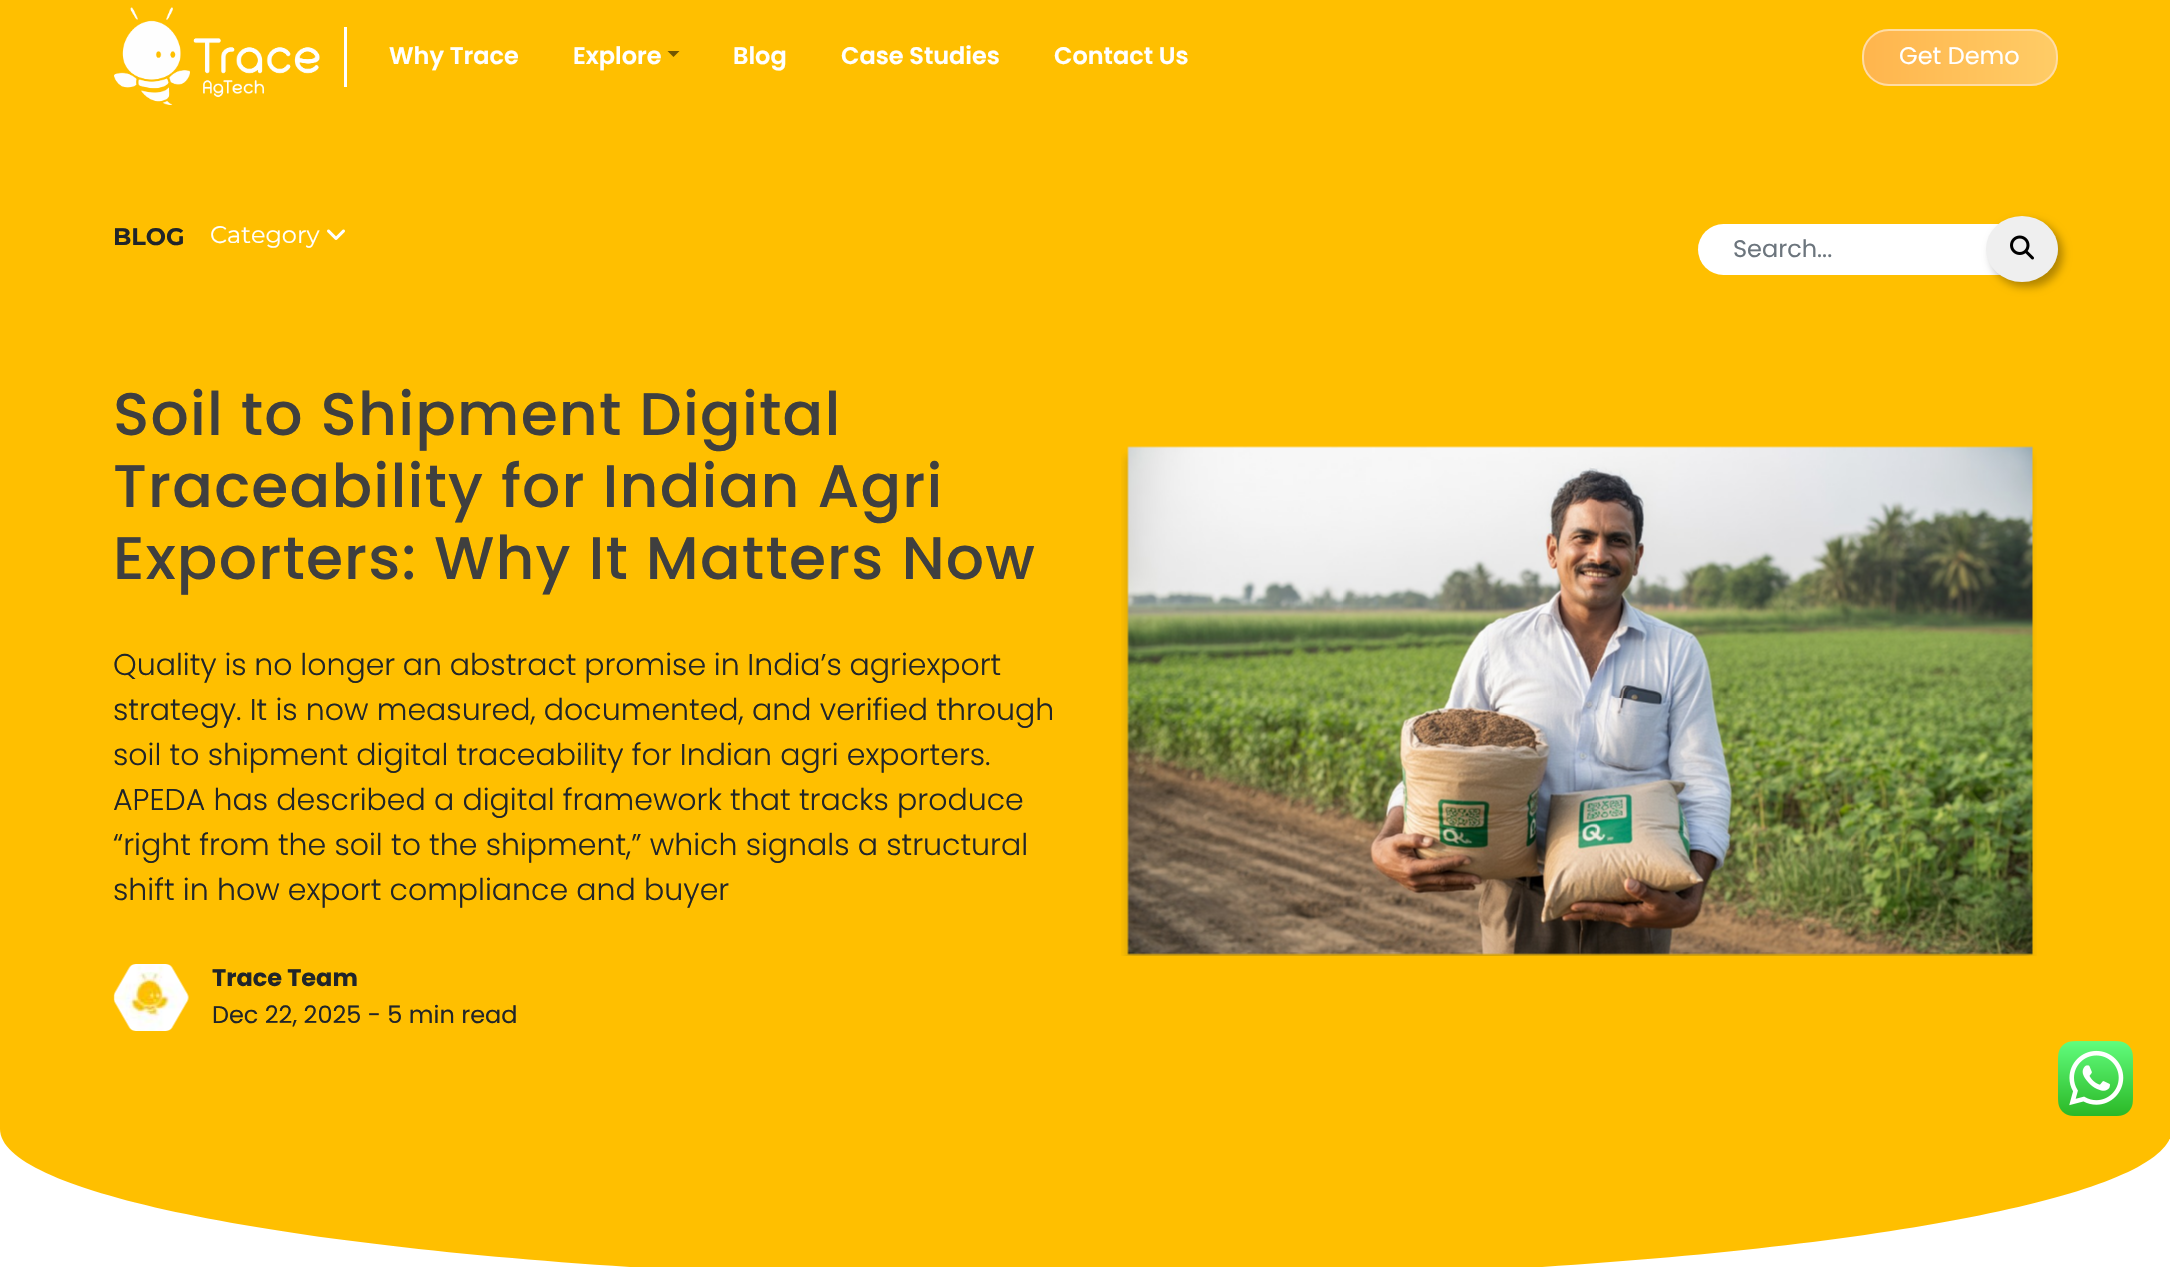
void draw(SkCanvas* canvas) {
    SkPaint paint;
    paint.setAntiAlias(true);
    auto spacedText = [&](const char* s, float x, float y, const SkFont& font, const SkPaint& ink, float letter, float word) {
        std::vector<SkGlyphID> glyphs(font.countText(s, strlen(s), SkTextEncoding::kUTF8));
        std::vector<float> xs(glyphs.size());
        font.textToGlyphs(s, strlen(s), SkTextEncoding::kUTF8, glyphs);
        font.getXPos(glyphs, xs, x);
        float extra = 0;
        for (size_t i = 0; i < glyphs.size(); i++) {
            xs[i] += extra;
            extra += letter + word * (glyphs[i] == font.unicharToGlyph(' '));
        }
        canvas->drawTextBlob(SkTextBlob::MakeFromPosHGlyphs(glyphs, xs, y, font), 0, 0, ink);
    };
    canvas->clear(0xFFFFFFFF);
    paint.setColor(0xFFFFBF00);
    canvas->drawRect(SkRect::MakeXYWH(0, 0, 2170, 1119), paint);
    canvas->drawImageRect(SkImages::DeferredFromEncodedData(SkData::MakeFromFileName("img1.png")), SkRect::MakeXYWH(114, 7, 206, 98), SkSamplingOptions());
    paint.setColor(0xFFFFFFFF);
    canvas->drawRect(SkRect::MakeXYWH(344, 27, 3, 60), paint);
    SkFont font1(fontMgr->matchFamilyStyle("Poppins", SkFontStyle(600, SkFontStyle::kNormal_Width, SkFontStyle::kUpright_Slant)), 24);
    font1.setSubpixel(true);
    canvas->drawString("Why Trace", 389, 64, font1, paint);
    canvas->drawString("Explore", 573, 64, font1, paint);
    paint.setColor(0xFF735600);
    canvas->drawPath(SkPathBuilder().moveTo(667.5f, 51).lineTo(679.5f, 51).lineTo(673.5f, 57).close().detach(), paint);
    paint.setColor(0xFFFFFFFF);
    canvas->drawString("Blog", 733, 64, font1, paint);
    canvas->drawString("Case Studies", 841, 64, font1, paint);
    canvas->drawString("Contact Us", 1054, 64, font1, paint);
    canvas->save();
    canvas->clipPath(SkPathBuilder().moveTo(1889, 29).lineTo(2031, 29).cubicTo(2046, 29, 2058, 41, 2058, 56).lineTo(2058, 59).cubicTo(2058, 74, 2046, 86, 2031, 86).lineTo(1889, 86).cubicTo(1874, 86, 1862, 74, 1862, 59).lineTo(1862, 56).cubicTo(1862, 41, 1874, 29, 1889, 29).close().detach(), true);
    {
        const SkColor colors[] = {0xFFFFB54D, 0xFFFFCC66};
        const float stops[] = {0, 1};
        const SkPoint ends[] = {{1863, 57}, {2057, 57}};
        paint.setShader(SkGradientShader::MakeLinear(ends, colors, stops, 2, SkTileMode::kClamp));
        paint.setAlpha(255);
    }
    canvas->drawRect(SkRect::MakeXYWH(1863, 29, 194, 57), paint);
    canvas->restore();
    paint.setStyle(SkPaint::kStroke_Style);
    paint.setStrokeWidth(2);
    paint.setShader(nullptr);
    paint.setColor(0xFFFFDCA3);
    canvas->drawRoundRect(SkRect::MakeXYWH(1863, 30, 194, 55), 26, 26, paint);
    SkFont font2(fontMgr->matchFamilyStyle("Poppins", SkFontStyle::Normal()), 24);
    font2.setSubpixel(true);
    paint.setStyle(SkPaint::kFill_Style);
    paint.setColor(0xFFFFFFFF);
    canvas->drawString("Get Demo", 1899, 64, font2, paint);
    SkFont font3(fontMgr->matchFamilyStyle("Montserrat", SkFontStyle::Bold()), 24);
    font3.setSubpixel(true);
    paint.setColor(0xFF212529);
    canvas->drawString("BLOG", 113, 245, font3, paint);
    SkFont font4(fontMgr->matchFamilyStyle("Montserrat", SkFontStyle::Normal()), 24);
    font4.setSubpixel(true);
    paint.setColor(0xFFFFFFFF);
    canvas->drawString("Category", 210, 243, font4, paint);
    canvas->drawImageRect(SkImages::DeferredFromEncodedData(SkData::MakeFromFileName("img2.png")), SkRect::MakeXYWH(327, 229, 18, 11), SkSamplingOptions());
    canvas->drawRoundRect(SkRect::MakeXYWH(1698, 224, 360, 51), 25.5f, 25.5f, paint);
    paint.setColor(0xFF6C757D);
    canvas->drawString("Search...", 1733, 257, font2, paint);
    paint.setColor(0x4D000000);
    paint.setMaskFilter(SkMaskFilter::MakeBlur(kNormal_SkBlurStyle, 4));
    canvas->drawRoundRect(SkRect::MakeXYWH(1991, 221, 72, 66), 33, 33, paint);
    paint.setMaskFilter(nullptr);
    paint.setColor(0xFFEFEFEF);
    canvas->drawOval(SkRect::MakeXYWH(1986, 216, 72, 66), paint);
    canvas->drawImageRect(SkImages::DeferredFromEncodedData(SkData::MakeFromFileName("img3.png")), SkRect::MakeXYWH(2010, 235, 24, 25), SkSamplingOptions());
    SkFont font5(fontMgr->matchFamilyStyle("Poppins", SkFontStyle(500, SkFontStyle::kNormal_Width, SkFontStyle::kUpright_Slant)), 60);
    font5.setSubpixel(true);
    paint.setColor(0xFF3F3F3F);
    spacedText("Soil to Shipment Digital", 113, 435, font5, paint, 1.2f, 0);
    spacedText("Traceability for Indian Agri", 113, 507, font5, paint, 1.2f, 0);
    spacedText("Exporters: Why It Matters Now", 113, 579, font5, paint, 1.2f, 0);
    SkFont font6(fontMgr->matchFamilyStyle("Poppins", SkFontStyle(300, SkFontStyle::kNormal_Width, SkFontStyle::kUpright_Slant)), 30);
    font6.setSubpixel(true);
    paint.setColor(0xFF212529);
    spacedText("Quality is no longer an abstract promise in India’s agri‑export", 113, 675, font6, paint, 0, -0.5f);
    canvas->drawString("strategy. It is now measured, documented, and verified through", 113, 720, font6, paint);
    canvas->drawString("soil to shipment digital traceability for Indian agri exporters.", 113, 765, font6, paint);
    canvas->drawString("APEDA has described a digital framework that tracks produce", 113, 810, font6, paint);
    canvas->drawString("“right from the soil to the shipment,” which signals a structural", 113, 855, font6, paint);
    canvas->drawString("shift in how export compliance and buyer", 113, 900, font6, paint);
    canvas->drawImageRect(SkImages::DeferredFromEncodedData(SkData::MakeFromFileName("img4.png")), SkRect::MakeXYWH(113, 964, 76, 67), SkSamplingOptions());
    SkFont font7(fontMgr->matchFamilyStyle("Poppins", SkFontStyle::Bold()), 24);
    font7.setSubpixel(true);
    canvas->drawString("Trace Team", 212, 986, font7, paint);
    canvas->drawString("Dec 22, 2025 - 5 min read", 212, 1023, font2, paint);
    canvas->drawImageRect(SkImages::DeferredFromEncodedData(SkData::MakeFromFileName("img5.png")), SkRect::MakeXYWH(1121, 446, 916, 510), SkSamplingOptions());
    paint.setColor(0xFFFFBF00);
    canvas->drawPath(SkPathBuilder().moveTo(0, 1119).lineTo(0, 1129).cubicTo(0, 1213, 486, 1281, 1086, 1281).cubicTo(1686, 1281, 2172, 1213, 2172, 1129).lineTo(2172, 1119).close().detach(), paint);
    canvas->drawImageRect(SkImages::DeferredFromEncodedData(SkData::MakeFromFileName("img6.png")), SkRect::MakeXYWH(2058, 1041, 75, 75), SkSamplingOptions());
}
